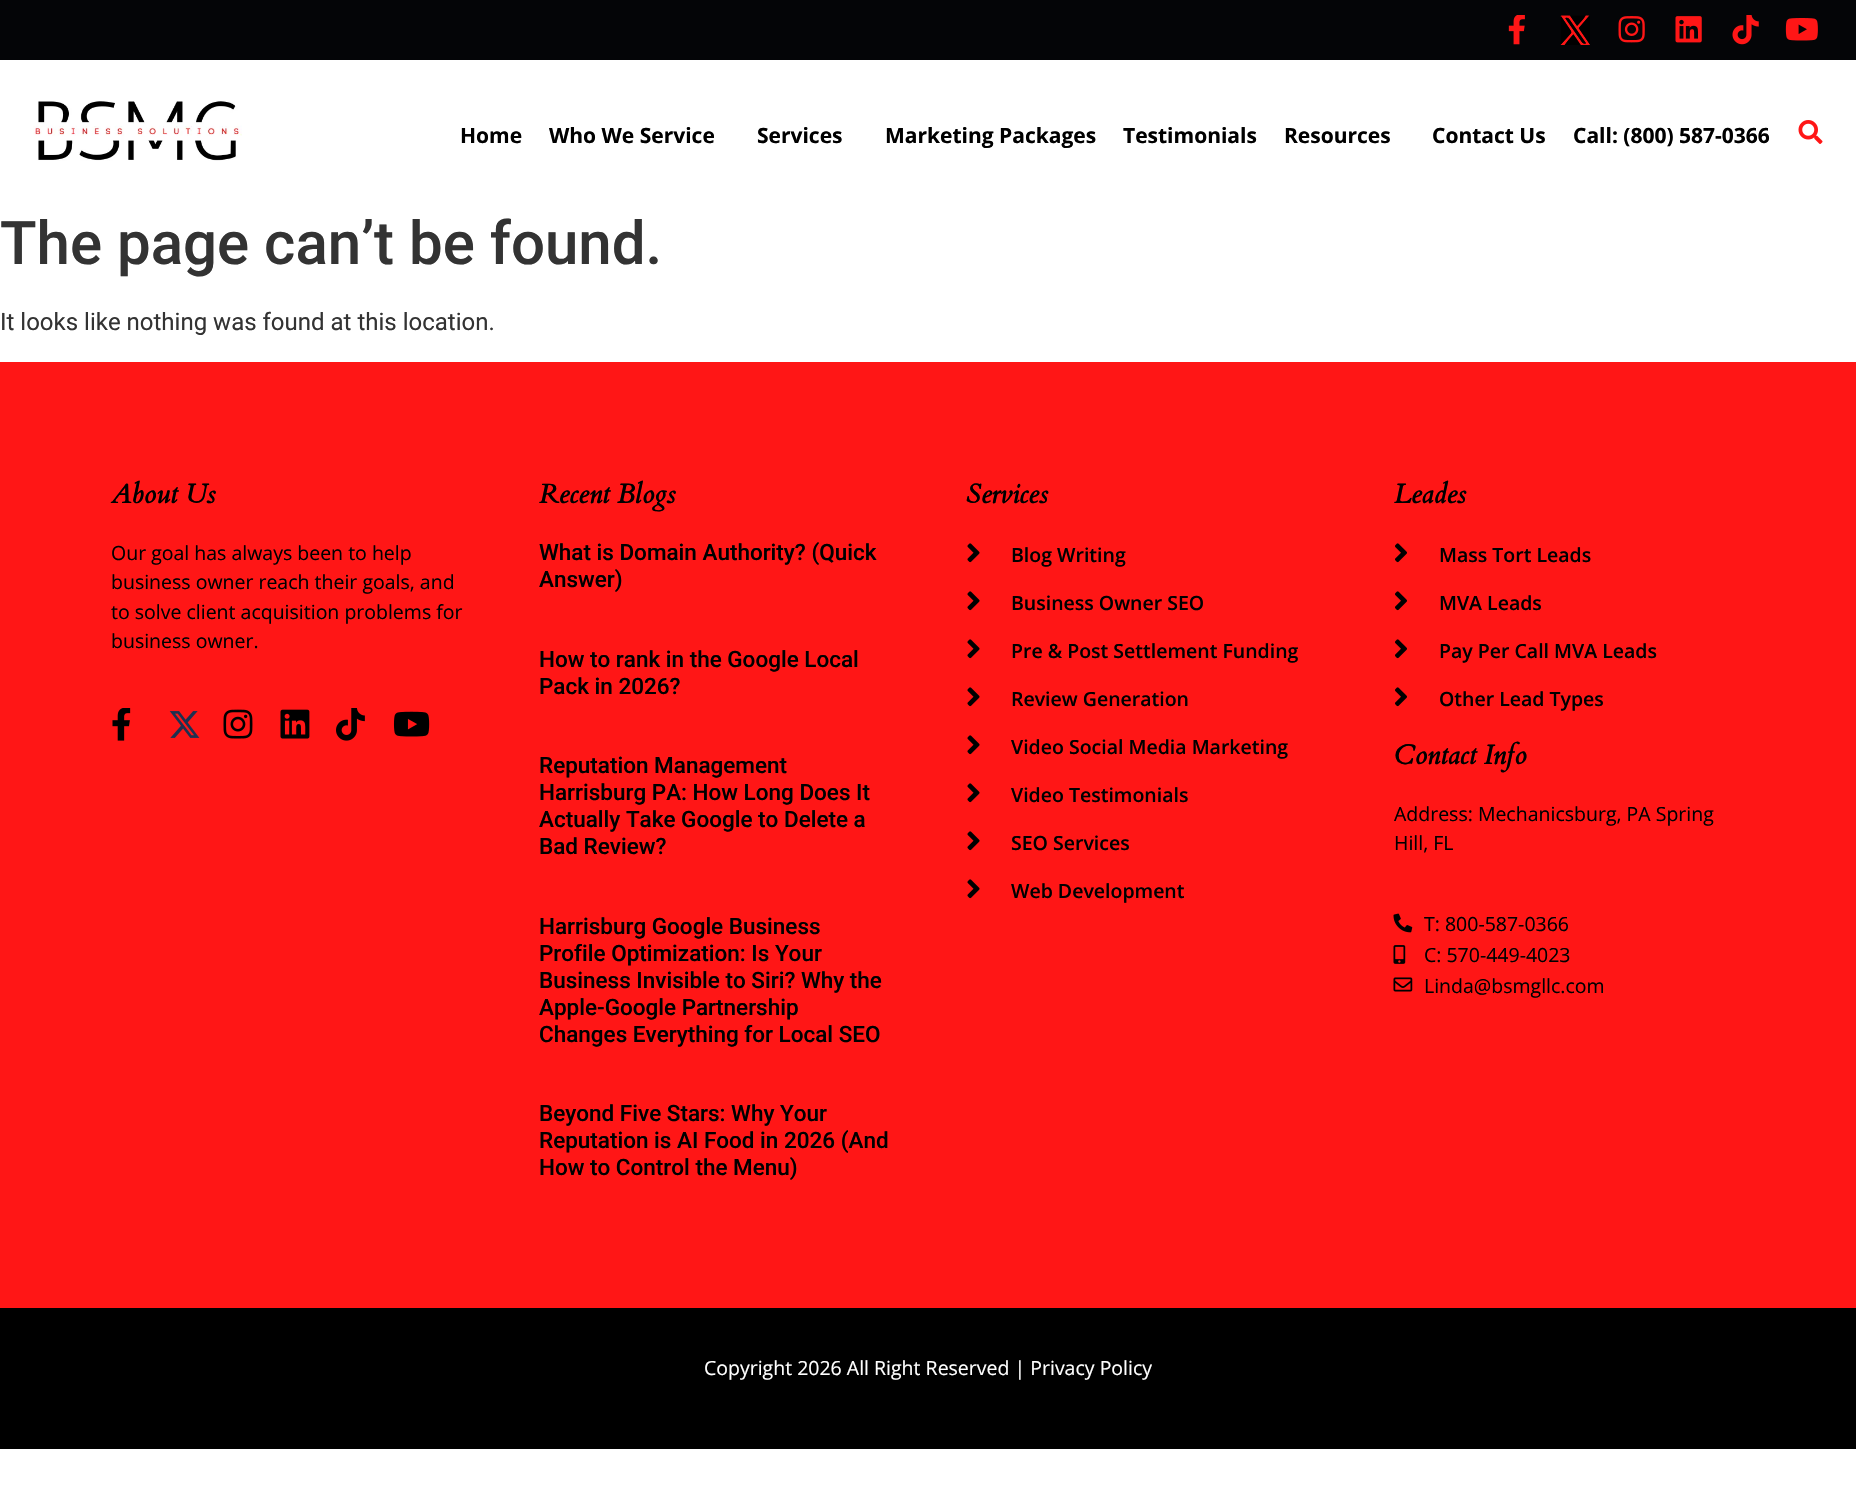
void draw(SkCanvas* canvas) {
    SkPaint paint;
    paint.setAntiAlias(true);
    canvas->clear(0xFFFFFFFF);
    paint.setColor(0xFF040507);
    canvas->drawRect(SkRect::MakeXYWH(0, 0, 1856, 60), paint);
    canvas->drawImageRect(SkImages::DeferredFromEncodedData(SkData::MakeFromFileName("img1.png")), SkRect::MakeXYWH(1508, 15, 17, 30), SkSamplingOptions());
    canvas->drawImageRect(SkImages::DeferredFromEncodedData(SkData::MakeFromFileName("img2.png")), SkRect::MakeXYWH(1560, 15, 30, 30), SkSamplingOptions());
    canvas->drawImageRect(SkImages::DeferredFromEncodedData(SkData::MakeFromFileName("img3.png")), SkRect::MakeXYWH(1618, 16, 27, 27), SkSamplingOptions());
    canvas->drawImageRect(SkImages::DeferredFromEncodedData(SkData::MakeFromFileName("img4.png")), SkRect::MakeXYWH(1675, 16, 27, 27), SkSamplingOptions());
    canvas->drawImageRect(SkImages::DeferredFromEncodedData(SkData::MakeFromFileName("img5.png")), SkRect::MakeXYWH(1732, 15, 27, 30), SkSamplingOptions());
    canvas->drawImageRect(SkImages::DeferredFromEncodedData(SkData::MakeFromFileName("img6.png")), SkRect::MakeXYWH(1785, 18, 33, 23), SkSamplingOptions());
    canvas->drawImageRect(SkImages::DeferredFromEncodedData(SkData::MakeFromFileName("img7.png")), SkRect::MakeXYWH(33, 101, 209, 60), SkSamplingOptions());
    SkFont font1(fontMgr->matchFamilyStyle("Open Sans", SkFontStyle::Bold()), 21);
    font1.setSubpixel(true);
    paint.setColor(0xFF000000);
    canvas->drawString("Home", 460, 143, font1, paint);
    canvas->drawString("Who We Service", 549, 143, font1, paint);
    canvas->drawString("Services", 757, 143, font1, paint);
    canvas->drawString("Marketing Packages", 885, 143, font1, paint);
    canvas->drawString("Testimonials", 1123, 143, font1, paint);
    canvas->drawString("Resources", 1284, 143, font1, paint);
    canvas->drawString("Contact Us", 1432, 143, font1, paint);
    canvas->drawString("Call: (800) 587-0366", 1573, 143, font1, paint);
    canvas->drawImageRect(SkImages::DeferredFromEncodedData(SkData::MakeFromFileName("img8.png")), SkRect::MakeXYWH(1798, 120, 25, 24), SkSamplingOptions());
    SkFont font2(fontMgr->matchFamilyStyle("Roboto", SkFontStyle(500, SkFontStyle::kNormal_Width, SkFontStyle::kUpright_Slant)), 60);
    font2.setSubpixel(true);
    paint.setColor(0xFF333333);
    canvas->drawString("The page can’t be found.", 0, 264, font2, paint);
    SkFont font3(fontMgr->matchFamilyStyle("Roboto", SkFontStyle::Normal()), 24);
    font3.setSubpixel(true);
    canvas->drawString("It looks like nothing was found at this location.", 0, 330, font3, paint);
    paint.setColor(0xFFFF1616);
    canvas->drawRect(SkRect::MakeXYWH(0, 362, 1856, 946), paint);
    SkFont font4(fontMgr->matchFamilyStyle("Cardo", SkFontStyle::BoldItalic()), 27);
    font4.setSubpixel(true);
    paint.setColor(0xFF000000);
    canvas->drawString("About Us", 111, 503, font4, paint);
    SkFont font5(fontMgr->matchFamilyStyle("Open Sans", SkFontStyle::Normal()), 19.5f);
    font5.setSubpixel(true);
    canvas->drawString("Our goal has always been to help", 111, 560, font5, paint);
    canvas->drawString("business owner reach their goals, and", 111, 589, font5, paint);
    canvas->drawString("to solve client acquisition problems for", 111, 619, font5, paint);
    canvas->drawString("business owner.", 111, 648, font5, paint);
    canvas->drawImageRect(SkImages::DeferredFromEncodedData(SkData::MakeFromFileName("img9.png")), SkRect::MakeXYWH(112, 708, 19, 33), SkSamplingOptions());
    canvas->drawImageRect(SkImages::DeferredFromEncodedData(SkData::MakeFromFileName("img10.png")), SkRect::MakeXYWH(169, 711, 31, 27), SkSamplingOptions());
    canvas->drawImageRect(SkImages::DeferredFromEncodedData(SkData::MakeFromFileName("img11.png")), SkRect::MakeXYWH(223, 709, 30, 30), SkSamplingOptions());
    canvas->drawImageRect(SkImages::DeferredFromEncodedData(SkData::MakeFromFileName("img12.png")), SkRect::MakeXYWH(280, 709, 30, 30), SkSamplingOptions());
    canvas->drawImageRect(SkImages::DeferredFromEncodedData(SkData::MakeFromFileName("img13.png")), SkRect::MakeXYWH(336, 708, 29, 33), SkSamplingOptions());
    canvas->drawImageRect(SkImages::DeferredFromEncodedData(SkData::MakeFromFileName("img14.png")), SkRect::MakeXYWH(393, 711, 37, 26), SkSamplingOptions());
    canvas->drawString("Recent Blogs", 539, 503, font4, paint);
    SkFont font6(fontMgr->matchFamilyStyle("Roboto", SkFontStyle(500, SkFontStyle::kNormal_Width, SkFontStyle::kUpright_Slant)), 22.5f);
    font6.setSubpixel(true);
    canvas->drawString("What is Domain Authority? (Quick", 539, 560, font6, paint);
    canvas->drawString("Answer)", 539, 587, font6, paint);
    canvas->drawString("How to rank in the Google Local", 539, 667, font6, paint);
    canvas->drawString("Pack in 2026?", 539, 694, font6, paint);
    canvas->drawString("Reputation Management", 539, 773, font6, paint);
    canvas->drawString("Harrisburg PA: How Long Does It", 539, 800, font6, paint);
    canvas->drawString("Actually Take Google to Delete a", 539, 827, font6, paint);
    canvas->drawString("Bad Review?", 539, 854, font6, paint);
    canvas->drawString("Harrisburg Google Business", 539, 934, font6, paint);
    canvas->drawString("Profile Optimization: Is Your", 539, 961, font6, paint);
    canvas->drawString("Business Invisible to Siri? Why the", 539, 988, font6, paint);
    canvas->drawString("Apple-Google Partnership", 539, 1015, font6, paint);
    canvas->drawString("Changes Everything for Local SEO", 539, 1042, font6, paint);
    canvas->drawString("Beyond Five Stars: Why Your", 539, 1121, font6, paint);
    canvas->drawString("Reputation is AI Food in 2026 (And", 539, 1148, font6, paint);
    canvas->drawString("How to Control the Menu)", 539, 1175, font6, paint);
    canvas->drawString("Services", 966, 503, font4, paint);
    canvas->drawImageRect(SkImages::DeferredFromEncodedData(SkData::MakeFromFileName("img15.png")), SkRect::MakeXYWH(967, 543, 13, 20), SkSamplingOptions());
    SkFont font7(fontMgr->matchFamilyStyle("Open Sans", SkFontStyle(600, SkFontStyle::kNormal_Width, SkFontStyle::kUpright_Slant)), 19.5f);
    font7.setSubpixel(true);
    canvas->drawString("Blog Writing", 1011, 562, font7, paint);
    canvas->drawImageRect(SkImages::DeferredFromEncodedData(SkData::MakeFromFileName("img15.png")), SkRect::MakeXYWH(967, 591, 13, 20), SkSamplingOptions());
    canvas->drawString("Business Owner SEO", 1011, 610, font7, paint);
    canvas->drawImageRect(SkImages::DeferredFromEncodedData(SkData::MakeFromFileName("img15.png")), SkRect::MakeXYWH(967, 639, 13, 20), SkSamplingOptions());
    canvas->drawString("Pre & Post Settlement Funding", 1011, 658, font7, paint);
    canvas->drawImageRect(SkImages::DeferredFromEncodedData(SkData::MakeFromFileName("img15.png")), SkRect::MakeXYWH(967, 687, 13, 20), SkSamplingOptions());
    canvas->drawString("Review Generation", 1011, 706, font7, paint);
    canvas->drawImageRect(SkImages::DeferredFromEncodedData(SkData::MakeFromFileName("img15.png")), SkRect::MakeXYWH(967, 735, 13, 20), SkSamplingOptions());
    canvas->drawString("Video Social Media Marketing", 1011, 754, font7, paint);
    canvas->drawImageRect(SkImages::DeferredFromEncodedData(SkData::MakeFromFileName("img15.png")), SkRect::MakeXYWH(967, 783, 13, 20), SkSamplingOptions());
    canvas->drawString("Video Testimonials", 1011, 802, font7, paint);
    canvas->drawImageRect(SkImages::DeferredFromEncodedData(SkData::MakeFromFileName("img15.png")), SkRect::MakeXYWH(967, 831, 13, 20), SkSamplingOptions());
    canvas->drawString("SEO Services", 1011, 850, font7, paint);
    canvas->drawImageRect(SkImages::DeferredFromEncodedData(SkData::MakeFromFileName("img15.png")), SkRect::MakeXYWH(967, 879, 13, 20), SkSamplingOptions());
    canvas->drawString("Web Development", 1011, 898, font7, paint);
    canvas->drawString("Leades", 1394, 503, font4, paint);
    canvas->drawImageRect(SkImages::DeferredFromEncodedData(SkData::MakeFromFileName("img16.png")), SkRect::MakeXYWH(1395, 543, 12, 20), SkSamplingOptions());
    canvas->drawString("Mass Tort Leads", 1439, 562, font7, paint);
    canvas->drawImageRect(SkImages::DeferredFromEncodedData(SkData::MakeFromFileName("img16.png")), SkRect::MakeXYWH(1395, 591, 12, 20), SkSamplingOptions());
    canvas->drawString("MVA Leads", 1439, 610, font7, paint);
    canvas->drawImageRect(SkImages::DeferredFromEncodedData(SkData::MakeFromFileName("img16.png")), SkRect::MakeXYWH(1395, 639, 12, 20), SkSamplingOptions());
    canvas->drawString("Pay Per Call MVA Leads", 1439, 658, font7, paint);
    canvas->drawImageRect(SkImages::DeferredFromEncodedData(SkData::MakeFromFileName("img16.png")), SkRect::MakeXYWH(1395, 687, 12, 20), SkSamplingOptions());
    canvas->drawString("Other Lead Types", 1439, 706, font7, paint);
    canvas->drawString("Contact Info", 1394, 764, font4, paint);
    canvas->drawString("Address: Mechanicsburg, PA Spring", 1394, 821, font5, paint);
    canvas->drawString("Hill, FL", 1394, 850, font5, paint);
    canvas->drawImageRect(SkImages::DeferredFromEncodedData(SkData::MakeFromFileName("img17.png")), SkRect::MakeXYWH(1393, 913, 20, 20), SkSamplingOptions());
    canvas->drawString("T: 800-587-0366", 1424, 931, font5, paint);
    canvas->drawImageRect(SkImages::DeferredFromEncodedData(SkData::MakeFromFileName("img18.png")), SkRect::MakeXYWH(1393, 945, 13, 19), SkSamplingOptions());
    canvas->drawString("C: 570-449-4023", 1424, 962, font5, paint);
    canvas->drawImageRect(SkImages::DeferredFromEncodedData(SkData::MakeFromFileName("img19.png")), SkRect::MakeXYWH(1393, 977, 20, 15), SkSamplingOptions());
    canvas->drawString("Linda@bsmgllc.com", 1424, 993, font5, paint);
    canvas->drawRect(SkRect::MakeXYWH(0, 1308, 1856, 141), paint);
    paint.setColor(0xFFFFFFFF);
    canvas->drawString("Copyright 2026 All Right Reserved | Privacy Policy", 704, 1375, font5, paint);
}
